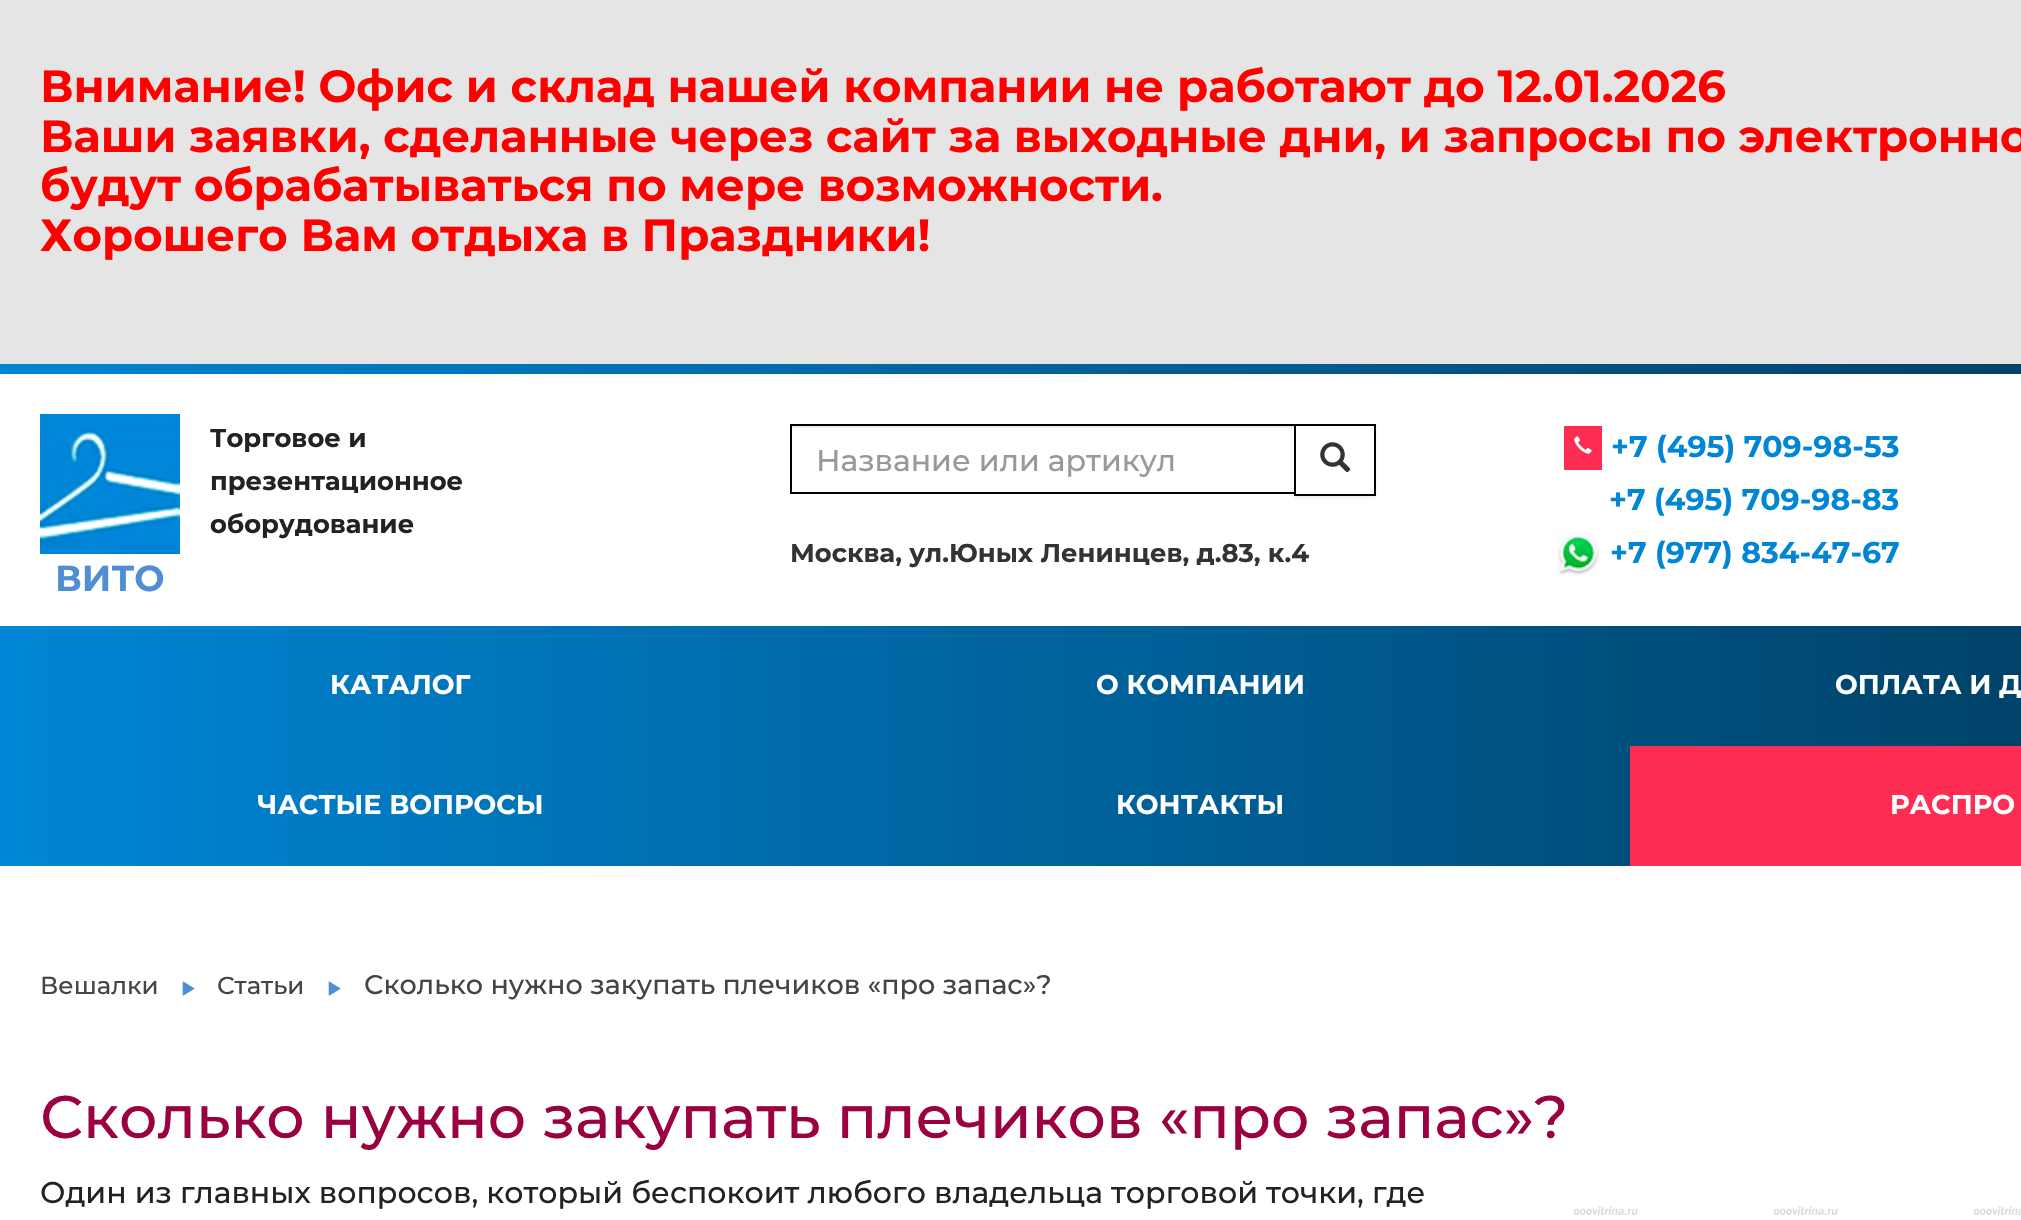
void draw(SkCanvas* canvas) {
    SkPaint paint;
    paint.setAntiAlias(true);
    canvas->clear(0xFFE5E5E5);
    SkFont font1(fontMgr->matchFamilyStyle("Montserrat", SkFontStyle::Bold()), 45);
    font1.setSubpixel(true);
    paint.setColor(0xFFFF0000);
    canvas->drawString("Внимание! Офис и склад нашей компании не работают до 12.01.2026", 40, 102, font1, paint);
    canvas->drawString("Ваши заявки, сделанные через сайт за выходные дни, и запросы по электронно", 40, 152, font1, paint);
    canvas->drawString("будут обрабатываться по мере возможности.", 40, 201, font1, paint);
    canvas->drawString("Хорошего Вам отдыха в Праздники!", 40, 251, font1, paint);
    {
        const SkColor colors[] = {0xFF0086D5, 0xFF003655};
        const float stops[] = {0, 1};
        const SkPoint ends[] = {{0, 369}, {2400, 369}};
        paint.setShader(SkGradientShader::MakeLinear(ends, colors, stops, 2, SkTileMode::kClamp));
        paint.setAlpha(255);
    }
    canvas->drawRect(SkRect::MakeXYWH(0, 364, 2021, 10), paint);
    paint.setShader(nullptr);
    paint.setColor(0x12000000);
    paint.setMaskFilter(SkMaskFilter::MakeBlur(kNormal_SkBlurStyle, 5));
    canvas->drawRect(SkRect::MakeXYWH(0, 376, 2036, 492), paint);
    paint.setMaskFilter(nullptr);
    paint.setColor(0xFFFFFFFF);
    canvas->drawRect(SkRect::MakeXYWH(0, 374, 2021, 252), paint);
    SkFont font2(fontMgr->matchFamilyStyle("Montserrat", SkFontStyle::Bold()), 25.8f);
    font2.setSubpixel(true);
    paint.setColor(0xFF222222);
    canvas->drawString("Торговое и", 210, 447, font2, paint);
    canvas->drawString("презентационное", 210, 490, font2, paint);
    canvas->drawString("оборудование", 210, 533, font2, paint);
    canvas->drawImageRect(SkImages::DeferredFromEncodedData(SkData::MakeFromFileName("img1.png")), SkRect::MakeXYWH(40, 414, 140, 140), SkSamplingOptions());
    SkFont font3(fontMgr->matchFamilyStyle("Montserrat", SkFontStyle::Bold()), 36);
    font3.setSubpixel(true);
    paint.setColor(0xFF508ED4);
    canvas->drawString("ВИТО", 55, 591, font3, paint);
    paint.setColor(0xFFECECEC);
    canvas->drawRect(SkRect::MakeXYWH(792, 426, 502, 2), paint);
    paint.setStyle(SkPaint::kStroke_Style);
    paint.setStrokeWidth(2);
    paint.setColor(0xFF000000);
    canvas->drawRect(SkRect::MakeXYWH(791, 425, 504, 68), paint);
    SkFont font4(fontMgr->matchFamilyStyle("Montserrat", SkFontStyle(500, SkFontStyle::kNormal_Width, SkFontStyle::kUpright_Slant)), 30);
    font4.setSubpixel(true);
    paint.setStyle(SkPaint::kFill_Style);
    paint.setColor(0xFF999999);
    canvas->drawString("Название или артикул", 816, 471, font4, paint);
    paint.setColor(0x12000000);
    paint.setMaskFilter(SkMaskFilter::MakeBlur(kNormal_SkBlurStyle, 1));
    canvas->drawRect(SkRect::MakeXYWH(1294, 426, 82, 72), paint);
    paint.setMaskFilter(nullptr);
    paint.setColor(0xFFFFFFFF);
    canvas->drawRect(SkRect::MakeXYWH(1295, 425, 80, 70), paint);
    paint.setStyle(SkPaint::kStroke_Style);
    paint.setColor(0xFF000000);
    canvas->drawRect(SkRect::MakeXYWH(1295, 425, 80, 70), paint);
    canvas->drawImageRect(SkImages::DeferredFromEncodedData(SkData::MakeFromFileName("img2.png")), SkRect::MakeXYWH(1320, 442, 31, 31), SkSamplingOptions());
    paint.setStyle(SkPaint::kFill_Style);
    paint.setColor(0xFF333333);
    canvas->drawString("Москва, ул.Юных Ленинцев, д.83, к.4", 790, 562, font2, paint);
    paint.setColor(0xFFFF2D54);
    canvas->drawRect(SkRect::MakeXYWH(1564, 426, 38, 44), paint);
    canvas->drawImageRect(SkImages::DeferredFromEncodedData(SkData::MakeFromFileName("img3.png")), SkRect::MakeXYWH(1574, 436, 18, 18), SkSamplingOptions());
    SkFont font5(fontMgr->matchFamilyStyle("Montserrat", SkFontStyle::Bold()), 30);
    font5.setSubpixel(true);
    paint.setColor(0xFF0086D5);
    canvas->drawString("+7 (495) 709-98-53", 1611, 457, font5, paint);
    canvas->drawString("+7 (495) 709-98-83", 1609, 510, font5, paint);
    canvas->drawImageRect(SkImages::DeferredFromEncodedData(SkData::MakeFromFileName("img4.png")), SkRect::MakeXYWH(1556, 532, 44, 44), SkSamplingOptions());
    canvas->drawString("+7 (977) 834-47-67", 1610, 563, font5, paint);
    {
        const SkColor colors[] = {0xFF0086D5, 0xFF003655};
        const float stops[] = {0, 1};
        const SkPoint ends[] = {{0, 746}, {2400, 746}};
        paint.setShader(SkGradientShader::MakeLinear(ends, colors, stops, 2, SkTileMode::kClamp));
        paint.setAlpha(255);
    }
    canvas->drawRect(SkRect::MakeXYWH(0, 626, 2021, 240), paint);
    SkFont font6(fontMgr->matchFamilyStyle("Montserrat", SkFontStyle::Bold()), 27);
    font6.setSubpixel(true);
    paint.setShader(nullptr);
    paint.setColor(0xFFFFFFFF);
    canvas->drawString("КАТАЛОГ", 330, 694, font6, paint);
    canvas->drawString("О КОМПАНИИ", 1096, 694, font6, paint);
    canvas->drawString("ОПЛАТА И Д", 1835, 694, font6, paint);
    canvas->drawString("ЧАСТЫЕ ВОПРОСЫ", 257, 814, font6, paint);
    canvas->drawString("КОНТАКТЫ", 1116, 814, font6, paint);
    paint.setColor(0xFFFF2D54);
    canvas->drawRect(SkRect::MakeXYWH(1630, 746, 391, 120), paint);
    paint.setColor(0xFFFFFFFF);
    canvas->drawString("РАСПРО", 1890, 814, font6, paint);
    canvas->drawRect(SkRect::MakeXYWH(0, 866, 2021, 354), paint);
    SkFont font7(fontMgr->matchFamilyStyle("Montserrat", SkFontStyle(500, SkFontStyle::kNormal_Width, SkFontStyle::kUpright_Slant)), 24.5f);
    font7.setSubpixel(true);
    paint.setColor(0xFF444444);
    canvas->drawString("Вешалки", 40, 994, font7, paint);
    canvas->drawImageRect(SkImages::DeferredFromEncodedData(SkData::MakeFromFileName("img5.png")), SkRect::MakeXYWH(182, 981, 13, 15), SkSamplingOptions());
    canvas->drawString("Статьи", 217, 994, font7, paint);
    canvas->drawImageRect(SkImages::DeferredFromEncodedData(SkData::MakeFromFileName("img5.png")), SkRect::MakeXYWH(328, 981, 13, 15), SkSamplingOptions());
    SkFont font8(fontMgr->matchFamilyStyle("Montserrat", SkFontStyle(500, SkFontStyle::kNormal_Width, SkFontStyle::kUpright_Slant)), 27);
    font8.setSubpixel(true);
    canvas->drawString("Сколько нужно закупать плечиков «про запас»?", 364, 994, font8, paint);
    SkFont font9(fontMgr->matchFamilyStyle("Montserrat", SkFontStyle(500, SkFontStyle::kNormal_Width, SkFontStyle::kUpright_Slant)), 60);
    font9.setSubpixel(true);
    paint.setColor(0xFF9B0041);
    canvas->drawString("Сколько нужно закупать плечиков «про запас»?", 40, 1138, font9, paint);
    paint.setColor(0xFF222222);
    canvas->drawString("Один из главных вопросов, который беспокоит любого владельца торговой точки, где", 40, 1203, font4, paint);
    canvas->drawImageRect(SkImages::DeferredFromEncodedData(SkData::MakeFromFileName("img6.png")), SkRect::MakeXYWH(1573, 1206, 448, 9), SkSamplingOptions());
}
